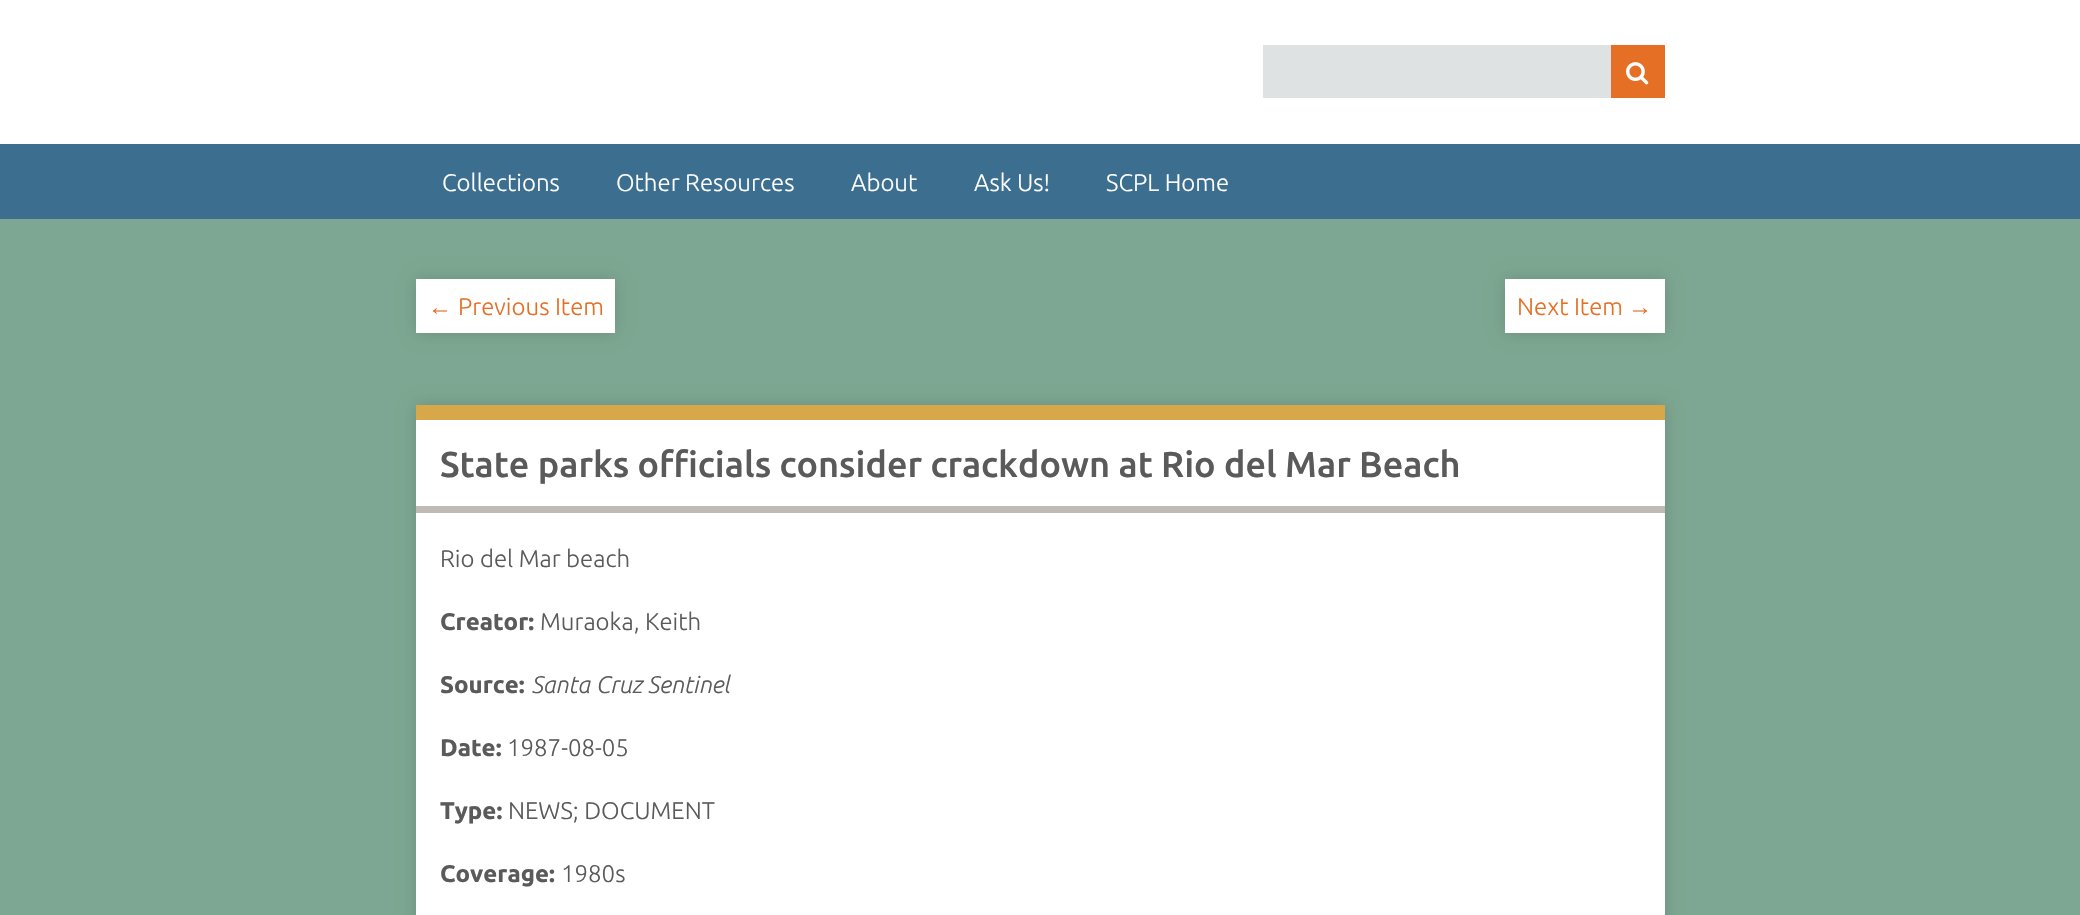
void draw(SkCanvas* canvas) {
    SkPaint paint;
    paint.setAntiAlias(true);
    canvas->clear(0xFF3B6E8F);
    paint.setColor(0xFFFFFFFF);
    canvas->drawRect(SkRect::MakeXYWH(0, 0, 2080, 144), paint);
    paint.setColor(0xFFDFE2E2);
    canvas->drawRect(SkRect::MakeXYWH(1263, 45, 348, 53), paint);
    paint.setColor(0xFFE57025);
    canvas->drawRect(SkRect::MakeXYWH(1611, 45, 54, 53), paint);
    canvas->drawImageRect(SkImages::DeferredFromEncodedData(SkData::MakeFromFileName("img1.png")), SkRect::MakeXYWH(1626, 62, 23, 23), SkSamplingOptions());
    SkFont font1(fontMgr->matchFamilyStyle("Ubuntu", SkFontStyle(300, SkFontStyle::kNormal_Width, SkFontStyle::kUpright_Slant)), 24);
    font1.setSubpixel(true);
    paint.setColor(0xFFFFFFFF);
    canvas->drawString("Collections", 442, 191, font1, paint);
    canvas->drawString("Other Resources", 616, 191, font1, paint);
    canvas->drawString("About", 851, 191, font1, paint);
    canvas->drawString("Ask Us!", 974, 191, font1, paint);
    canvas->drawString("SCPL Home", 1106, 191, font1, paint);
    paint.setColor(0xFF7DA792);
    canvas->drawRect(SkRect::MakeXYWH(0, 219, 2080, 696), paint);
    paint.setColor(0x26000000);
    paint.setMaskFilter(SkMaskFilter::MakeBlur(kNormal_SkBlurStyle, 7.5f));
    canvas->drawRect(SkRect::MakeXYWH(416, 279, 199, 54), paint);
    paint.setMaskFilter(nullptr);
    paint.setColor(0xFFFFFFFF);
    canvas->drawRect(SkRect::MakeXYWH(416, 279, 199, 54), paint);
    SkFont font2(fontMgr->matchFamilyStyle("Liberation Sans", SkFontStyle::Normal()), 24);
    font2.setSubpixel(true);
    paint.setColor(0xFFE57025);
    canvas->drawString("←", 428, 315, font2, paint);
    canvas->drawString("Previous Item", 458, 315, font1, paint);
    paint.setColor(0x26000000);
    paint.setMaskFilter(SkMaskFilter::MakeBlur(kNormal_SkBlurStyle, 7.5f));
    canvas->drawRect(SkRect::MakeXYWH(1505, 279, 160, 54), paint);
    paint.setMaskFilter(nullptr);
    paint.setColor(0xFFFFFFFF);
    canvas->drawRect(SkRect::MakeXYWH(1505, 279, 160, 54), paint);
    paint.setColor(0xFFE57025);
    canvas->drawString("Next Item", 1517, 315, font1, paint);
    canvas->drawString("→", 1628, 315, font2, paint);
    paint.setColor(0x26000000);
    paint.setMaskFilter(SkMaskFilter::MakeBlur(kNormal_SkBlurStyle, 7.5f));
    canvas->drawRect(SkRect::MakeXYWH(416, 405, 1249, 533), paint);
    paint.setMaskFilter(nullptr);
    paint.setColor(0xFFFFFFFF);
    canvas->drawRect(SkRect::MakeXYWH(416, 420, 1249, 495), paint);
    paint.setColor(0xFFD7A74A);
    canvas->drawRect(SkRect::MakeXYWH(416, 405, 1249, 15), paint);
    paint.setColor(0xFFBFBBB4);
    canvas->drawRect(SkRect::MakeXYWH(416, 506, 1249, 7), paint);
    SkFont font3(fontMgr->matchFamilyStyle("Ubuntu", SkFontStyle(500, SkFontStyle::kNormal_Width, SkFontStyle::kUpright_Slant)), 36);
    font3.setSubpixel(true);
    paint.setColor(0xFF5A5A5A);
    canvas->drawString("State parks officials consider crackdown at Rio del Mar Beach", 440, 477, font3, paint);
    canvas->drawString("Rio del Mar beach", 440, 567, font1, paint);
    SkFont font4(fontMgr->matchFamilyStyle("Ubuntu", SkFontStyle::Bold()), 24);
    font4.setSubpixel(true);
    canvas->drawString("Creator:", 440, 630, font4, paint);
    canvas->drawString("Muraoka, Keith", 540, 630, font1, paint);
    canvas->drawString("Source:", 440, 693, font4, paint);
    SkFont font5(fontMgr->matchFamilyStyle("Ubuntu", SkFontStyle(300, SkFontStyle::kNormal_Width, SkFontStyle::kItalic_Slant)), 24);
    font5.setSubpixel(true);
    canvas->drawString("Santa Cruz Sentinel", 531, 693, font5, paint);
    canvas->drawString("Date:", 440, 756, font4, paint);
    canvas->drawString("1987-08-05", 507, 756, font1, paint);
    canvas->drawString("Type:", 440, 819, font4, paint);
    canvas->drawString("NEWS; DOCUMENT", 508, 819, font1, paint);
    canvas->drawString("Coverage:", 440, 882, font4, paint);
    canvas->drawString("1980s", 561, 882, font1, paint);
}
